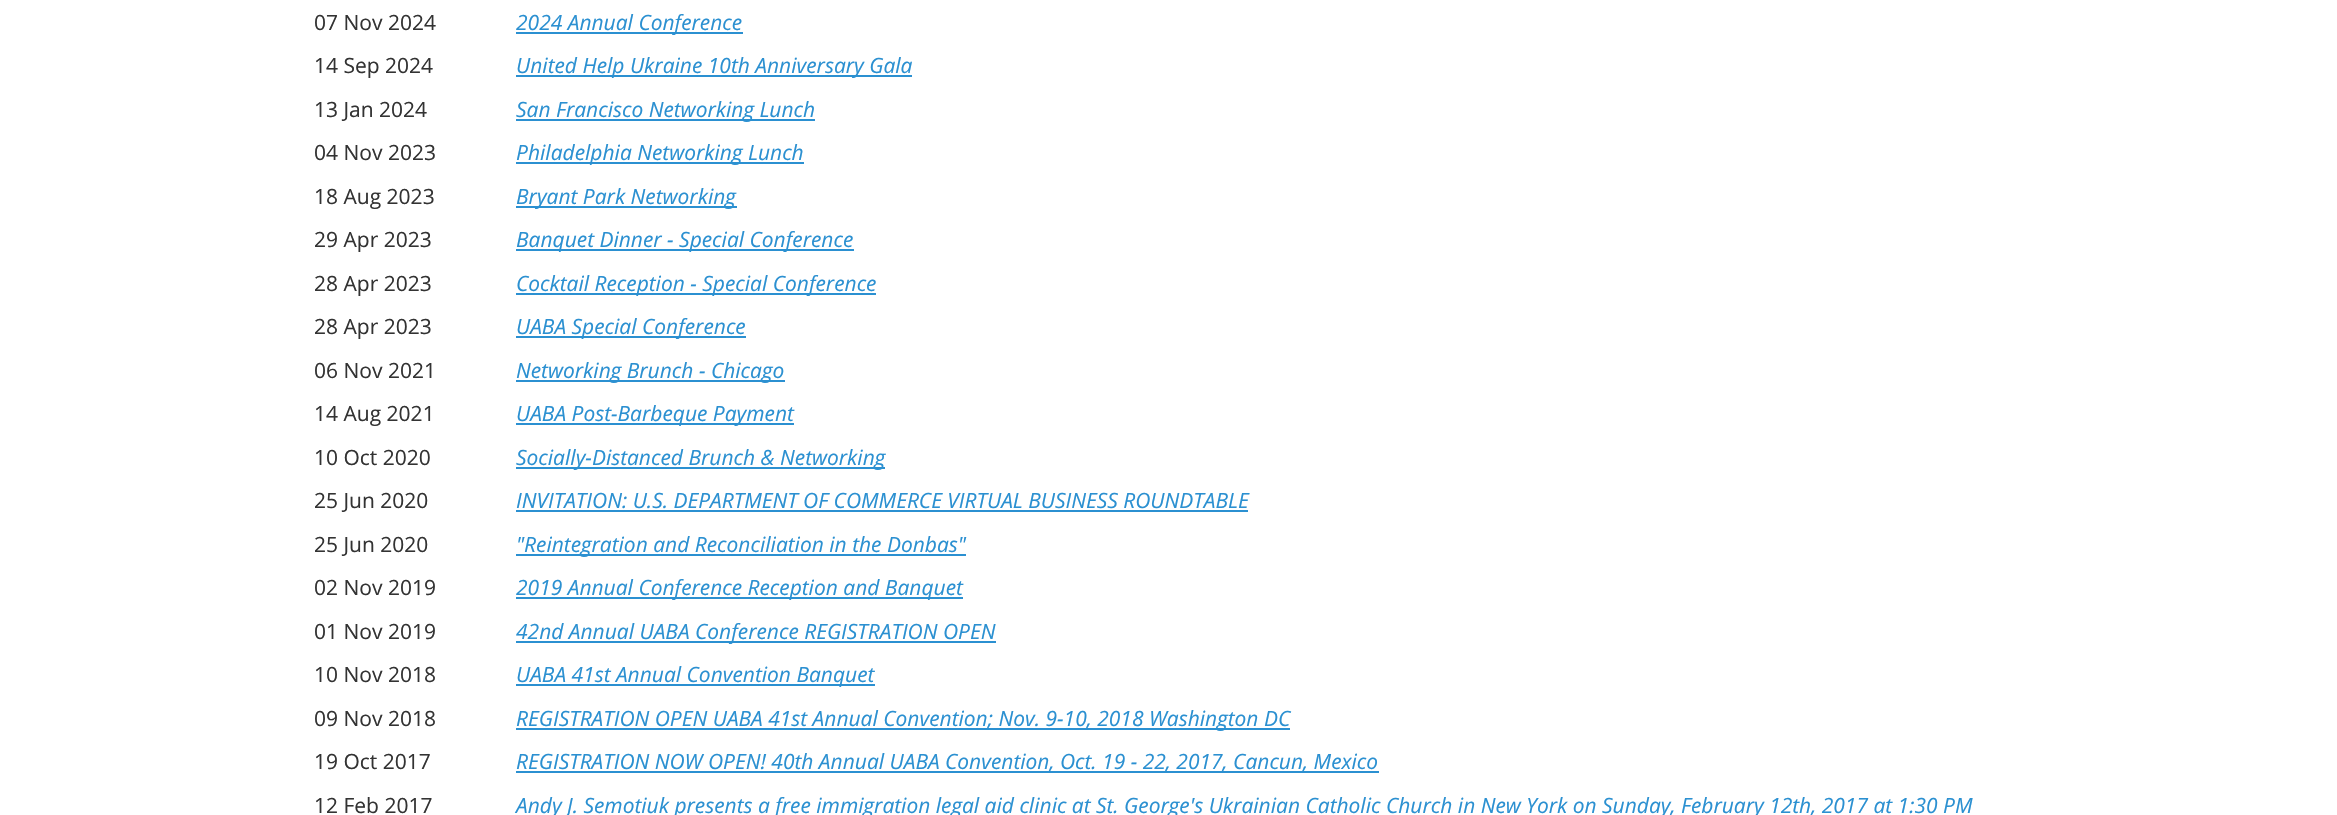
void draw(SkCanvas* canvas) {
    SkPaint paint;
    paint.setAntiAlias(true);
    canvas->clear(0xFFFFFFFF);
    SkFont font1(fontMgr->matchFamilyStyle("Open Sans", SkFontStyle::Normal()), 21);
    font1.setSubpixel(true);
    paint.setColor(0xFF333333);
    canvas->drawString("07 Nov 2024", 314, 30, font1, paint);
    paint.setColor(0xFF2B90D1);
    canvas->drawRect(SkRect::MakeXYWH(516, 32, 227, 2), paint);
    SkFont font2(fontMgr->matchFamilyStyle("Open Sans", SkFontStyle::Italic()), 21);
    font2.setSubpixel(true);
    canvas->drawString("2024 Annual Conference", 516, 30, font2, paint);
    paint.setColor(0xFF333333);
    canvas->drawString("14 Sep 2024", 314, 73, font1, paint);
    paint.setColor(0xFF2B90D1);
    canvas->drawRect(SkRect::MakeXYWH(516, 75, 396, 2), paint);
    canvas->drawString("United Help Ukraine 10th Anniversary Gala", 516, 73, font2, paint);
    paint.setColor(0xFF333333);
    canvas->drawString("13 Jan 2024", 314, 117, font1, paint);
    paint.setColor(0xFF2B90D1);
    canvas->drawRect(SkRect::MakeXYWH(516, 119, 299, 2), paint);
    canvas->drawString("San Francisco Networking Lunch", 516, 117, font2, paint);
    paint.setColor(0xFF333333);
    canvas->drawString("04 Nov 2023", 314, 160, font1, paint);
    paint.setColor(0xFF2B90D1);
    canvas->drawRect(SkRect::MakeXYWH(516, 162, 288, 2), paint);
    canvas->drawString("Philadelphia Networking Lunch", 516, 160, font2, paint);
    paint.setColor(0xFF333333);
    canvas->drawString("18 Aug 2023", 314, 204, font1, paint);
    paint.setColor(0xFF2B90D1);
    canvas->drawRect(SkRect::MakeXYWH(516, 206, 221, 2), paint);
    canvas->drawString("Bryant Park Networking", 516, 204, font2, paint);
    paint.setColor(0xFF333333);
    canvas->drawString("29 Apr 2023", 314, 247, font1, paint);
    paint.setColor(0xFF2B90D1);
    canvas->drawRect(SkRect::MakeXYWH(516, 249, 338, 2), paint);
    canvas->drawString("Banquet Dinner - Special Conference", 516, 247, font2, paint);
    paint.setColor(0xFF333333);
    canvas->drawString("28 Apr 2023", 314, 291, font1, paint);
    paint.setColor(0xFF2B90D1);
    canvas->drawRect(SkRect::MakeXYWH(516, 293, 360, 2), paint);
    canvas->drawString("Cocktail Reception - Special Conference", 516, 291, font2, paint);
    paint.setColor(0xFF333333);
    canvas->drawString("28 Apr 2023", 314, 334, font1, paint);
    paint.setColor(0xFF2B90D1);
    canvas->drawRect(SkRect::MakeXYWH(516, 336, 230, 2), paint);
    canvas->drawString("UABA Special Conference", 516, 334, font2, paint);
    paint.setColor(0xFF333333);
    canvas->drawString("06 Nov 2021", 314, 378, font1, paint);
    paint.setColor(0xFF2B90D1);
    canvas->drawRect(SkRect::MakeXYWH(516, 380, 269, 2), paint);
    canvas->drawString("Networking Brunch - Chicago", 516, 378, font2, paint);
    paint.setColor(0xFF333333);
    canvas->drawString("14 Aug 2021", 314, 421, font1, paint);
    paint.setColor(0xFF2B90D1);
    canvas->drawRect(SkRect::MakeXYWH(516, 423, 278, 2), paint);
    canvas->drawString("UABA Post-Barbeque Payment", 516, 421, font2, paint);
    paint.setColor(0xFF333333);
    canvas->drawString("10 Oct 2020", 314, 465, font1, paint);
    paint.setColor(0xFF2B90D1);
    canvas->drawRect(SkRect::MakeXYWH(516, 467, 369, 2), paint);
    canvas->drawString("Socially-Distanced Brunch & Networking", 516, 465, font2, paint);
    paint.setColor(0xFF333333);
    canvas->drawString("25 Jun 2020", 314, 508, font1, paint);
    paint.setColor(0xFF2B90D1);
    canvas->drawString("INVITATION: U.S. DEPARTMENT OF COMMERCE VIRTUAL BUSINESS ROUNDTABLE", 516, 508, font2, paint);
    canvas->drawRect(SkRect::MakeXYWH(516, 510, 732, 2), paint);
    paint.setColor(0xFF333333);
    canvas->drawString("25 Jun 2020", 314, 552, font1, paint);
    paint.setColor(0xFF2B90D1);
    canvas->drawRect(SkRect::MakeXYWH(516, 554, 450, 2), paint);
    canvas->drawString("\"Reintegration and Reconciliation in the Donbas\"", 516, 552, font2, paint);
    paint.setColor(0xFF333333);
    canvas->drawString("02 Nov 2019", 314, 595, font1, paint);
    paint.setColor(0xFF2B90D1);
    canvas->drawRect(SkRect::MakeXYWH(516, 597, 447, 2), paint);
    canvas->drawString("2019 Annual Conference Reception and Banquet", 516, 595, font2, paint);
    paint.setColor(0xFF333333);
    canvas->drawString("01 Nov 2019", 314, 639, font1, paint);
    paint.setColor(0xFF2B90D1);
    canvas->drawRect(SkRect::MakeXYWH(516, 641, 480, 2), paint);
    canvas->drawString("42nd Annual UABA Conference REGISTRATION OPEN", 516, 639, font2, paint);
    paint.setColor(0xFF333333);
    canvas->drawString("10 Nov 2018", 314, 682, font1, paint);
    paint.setColor(0xFF2B90D1);
    canvas->drawRect(SkRect::MakeXYWH(516, 684, 359, 2), paint);
    canvas->drawString("UABA 41st Annual Convention Banquet", 516, 682, font2, paint);
    paint.setColor(0xFF333333);
    canvas->drawString("09 Nov 2018", 314, 726, font1, paint);
    paint.setColor(0xFF2B90D1);
    canvas->drawRect(SkRect::MakeXYWH(516, 728, 774, 2), paint);
    canvas->drawString("REGISTRATION OPEN UABA 41st Annual Convention; Nov. 9-10, 2018 Washington DC", 516, 726, font2, paint);
    paint.setColor(0xFF333333);
    canvas->drawString("19 Oct 2017", 314, 769, font1, paint);
    paint.setColor(0xFF2B90D1);
    canvas->drawRect(SkRect::MakeXYWH(516, 771, 863, 2), paint);
    canvas->drawString("REGISTRATION NOW OPEN! 40th Annual UABA Convention, Oct. 19 - 22, 2017, Cancun, Mexico", 516, 769, font2, paint);
    paint.setColor(0xFF333333);
    canvas->drawString("12 Feb 2017", 314, 813, font1, paint);
    paint.setColor(0xFF2B90D1);
    canvas->drawString("Andy J. Semotiuk presents a free immigration legal aid clinic at St. George's Ukrainian Catholic Church in New York on Sunday, February 12th, 2017 at 1:30 PM", 516, 813, font2, paint);
}
